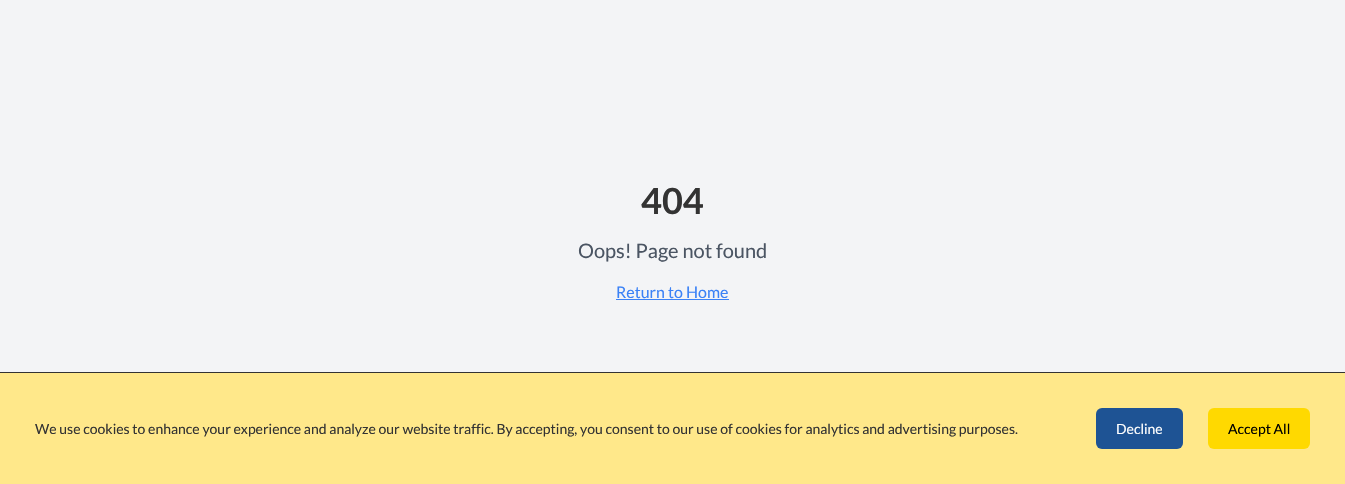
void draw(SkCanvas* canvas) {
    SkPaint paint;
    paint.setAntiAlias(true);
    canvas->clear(0xFFF3F4F6);
    SkFont font1(fontMgr->matchFamilyStyle("Lato", SkFontStyle::Bold()), 36);
    font1.setSubpixel(true);
    paint.setColor(0xFF333333);
    canvas->drawString("404", 641, 214, font1, paint);
    SkFont font2(fontMgr->matchFamilyStyle("Lato", SkFontStyle::Normal()), 20);
    font2.setSubpixel(true);
    paint.setColor(0xFF4B5563);
    canvas->drawString("Oops! Page not found", 578, 258, font2, paint);
    SkFont font3(fontMgr->matchFamilyStyle("Lato", SkFontStyle::Normal()), 16);
    font3.setSubpixel(true);
    paint.setColor(0xFF3B82F6);
    canvas->drawString("Return to Home", 616, 298, font3, paint);
    canvas->drawRect(SkRect::MakeXYWH(616, 299, 113, 1), paint);
    paint.setColor(0xFFFFE88A);
    canvas->drawRect(SkRect::MakeXYWH(0, 373, 1345, 111), paint);
    paint.setColor(0xFF333333);
    canvas->drawRect(SkRect::MakeXYWH(0, 372, 1345, 1), paint);
    SkFont font4(fontMgr->matchFamilyStyle("Lato", SkFontStyle::Normal()), 14);
    font4.setSubpixel(true);
    canvas->drawString("We use cookies to enhance your experience and analyze our website traffic. By accepting, you consent to our use of cookies for analytics and advertising purposes.", 35, 434, font4, paint);
    paint.setColor(0xFF1E5394);
    canvas->drawRoundRect(SkRect::MakeXYWH(1096, 408, 87, 41), 6, 6, paint);
    paint.setColor(0xFFFFFFFF);
    canvas->drawString("Decline", 1116, 434, font4, paint);
    paint.setColor(0xFFFFD900);
    canvas->drawRoundRect(SkRect::MakeXYWH(1208, 408, 102, 41), 6, 6, paint);
    paint.setColor(0xFF000000);
    canvas->drawString("Accept All", 1228, 434, font4, paint);
}
